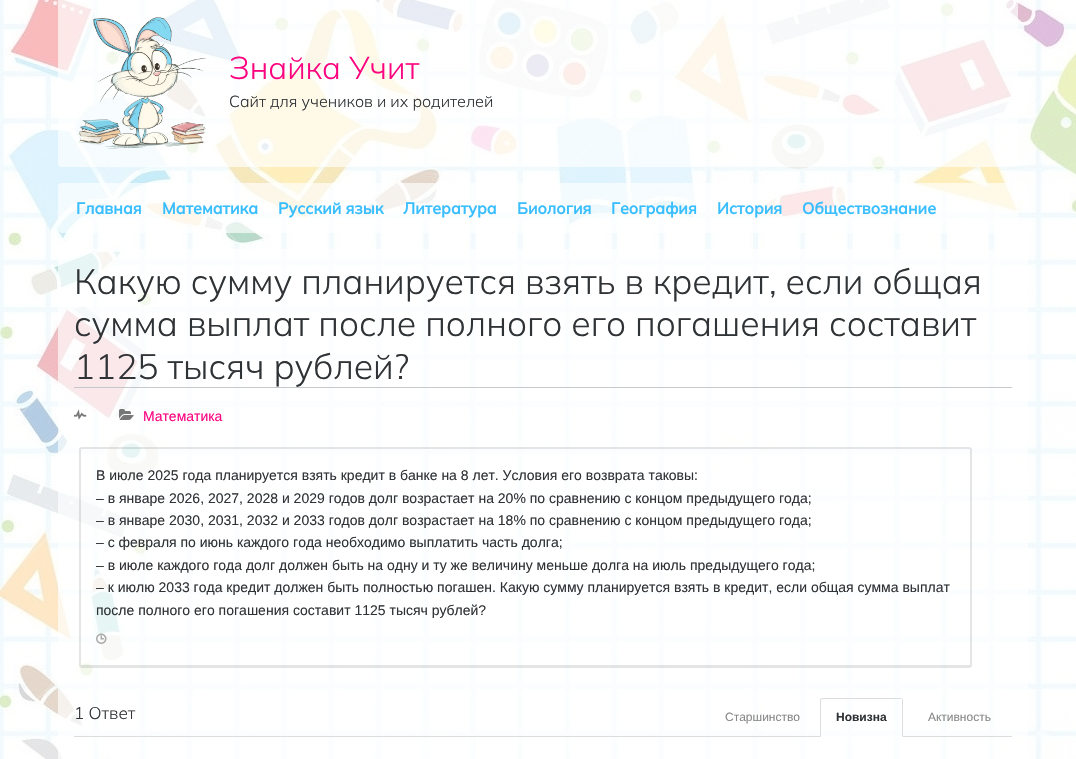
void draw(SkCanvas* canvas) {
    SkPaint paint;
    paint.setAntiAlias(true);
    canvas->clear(0xFFFFFFFF);
    canvas->drawImageRect(SkImages::DeferredFromEncodedData(SkData::MakeFromFileName("img1.png")), SkRect::MakeXYWH(0, 0, 1076, 759), SkSamplingOptions());
    paint.setColor(0xA6FFFFFF);
    canvas->drawRoundRect(SkRect::MakeXYWH(58, -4, 960, 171), 4, 4, paint);
    canvas->drawImageRect(SkImages::DeferredFromEncodedData(SkData::MakeFromFileName("img2.png")), SkRect::MakeXYWH(78, 17, 129, 132), SkSamplingOptions());
    SkFont font1(fontMgr->matchFamilyStyle("Mulish", SkFontStyle(300, SkFontStyle::kNormal_Width, SkFontStyle::kUpright_Slant)), 31.5f);
    font1.setSubpixel(true);
    paint.setColor(0xFFFC0380);
    canvas->drawString("Знайка Учит", 229, 79, font1, paint);
    SkFont font2(fontMgr->matchFamilyStyle("Mulish", SkFontStyle(300, SkFontStyle::kNormal_Width, SkFontStyle::kUpright_Slant)), 16);
    font2.setSubpixel(true);
    paint.setColor(0xFF303336);
    canvas->drawString("Сайт для учеников и их родителей", 229, 107, font2, paint);
    paint.setColor(0xA6FFFFFF);
    canvas->drawRoundRect(SkRect::MakeXYWH(58, 183, 960, 50), 4, 4, paint);
    SkFont font3(fontMgr->matchFamilyStyle("Mulish", SkFontStyle::Bold()), 16);
    font3.setSubpixel(true);
    paint.setColor(0xFF39BEFF);
    canvas->drawString("Главная", 76, 214, font3, paint);
    canvas->drawString("Математика", 162, 214, font3, paint);
    canvas->drawString("Русский язык", 278, 214, font3, paint);
    canvas->drawString("Литература", 403, 214, font3, paint);
    canvas->drawString("Биология", 517, 214, font3, paint);
    canvas->drawString("География", 611, 214, font3, paint);
    canvas->drawString("История", 717, 214, font3, paint);
    canvas->drawString("Обществознание", 802, 214, font3, paint);
    paint.setColor(0xA6FFFFFF);
    canvas->drawRoundRect(SkRect::MakeXYWH(58, 249, 970, 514), 4, 4, paint);
    paint.setColor(0xFFC6C9CC);
    canvas->drawRect(SkRect::MakeXYWH(74, 387, 938, 1), paint);
    SkFont font4(fontMgr->matchFamilyStyle("Mulish", SkFontStyle(300, SkFontStyle::kNormal_Width, SkFontStyle::kUpright_Slant)), 35.2f);
    font4.setSubpixel(true);
    paint.setColor(0xFF303336);
    canvas->drawString("Какую сумму планируется взять в кредит, если общая", 74, 294, font4, paint);
    canvas->drawString("сумма выплат после полного его погашения составит", 74, 336, font4, paint);
    canvas->drawString("1125 тысяч рублей?", 74, 379, font4, paint);
    canvas->drawImageRect(SkImages::DeferredFromEncodedData(SkData::MakeFromFileName("img3.png")), SkRect::MakeXYWH(74, 409, 13, 11), SkSamplingOptions());
    canvas->drawImageRect(SkImages::DeferredFromEncodedData(SkData::MakeFromFileName("img4.png")), SkRect::MakeXYWH(119, 409, 15, 11), SkSamplingOptions());
    SkFont font5(fontMgr->matchFamilyStyle("Liberation Sans", SkFontStyle::Normal()), 14);
    font5.setSubpixel(true);
    paint.setColor(0xFFFC0380);
    canvas->drawString("Математика", 143, 421, font5, paint);
    paint.setStyle(SkPaint::kStroke_Style);
    paint.setStrokeWidth(2);
    paint.setColor(0x1A000000);
    canvas->drawRoundRect(SkRect::MakeXYWH(80, 448, 891, 219), 2, 2, paint);
    paint.setStyle(SkPaint::kFill_Style);
    paint.setColor(0xFF303336);
    canvas->drawString("В июле 2025 года планируется взять кредит в банке на 8 лет. Условия его возврата таковы:", 96, 480, font5, paint);
    canvas->drawString("– в январе 2026, 2027, 2028 и 2029 годов долг возрастает на 20% по сравнению с концом предыдущего года;", 96, 503, font5, paint);
    canvas->drawString("– в январе 2030, 2031, 2032 и 2033 годов долг возрастает на 18% по сравнению с концом предыдущего года;", 96, 525, font5, paint);
    canvas->drawString("– с февраля по июнь каждого года необходимо выплатить часть долга;", 96, 547, font5, paint);
    canvas->drawString("– в июле каждого года долг должен быть на одну и ту же величину меньше долга на июль предыдущего года;", 96, 570, font5, paint);
    canvas->drawString("– к июлю 2033 года кредит должен быть полностью погашен. Какую сумму планируется взять в кредит, если общая сумма выплат", 96, 592, font5, paint);
    canvas->drawString("после полного его погашения составит 1125 тысяч рублей?", 96, 615, font5, paint);
    canvas->drawImageRect(SkImages::DeferredFromEncodedData(SkData::MakeFromFileName("img5.png")), SkRect::MakeXYWH(96, 633, 11, 11), SkSamplingOptions());
    paint.setColor(0x1A000000);
    canvas->drawRect(SkRect::MakeXYWH(81, 665, 889, 1), paint);
    paint.setColor(0xFFDDDDDD);
    canvas->drawRect(SkRect::MakeXYWH(74, 736, 938, 1), paint);
    SkFont font6(fontMgr->matchFamilyStyle("Mulish", SkFontStyle(300, SkFontStyle::kNormal_Width, SkFontStyle::kUpright_Slant)), 17);
    font6.setSubpixel(true);
    paint.setColor(0xFF303336);
    canvas->drawString("1 Ответ", 74, 719, font6, paint);
    SkFont font7(fontMgr->matchFamilyStyle("Liberation Sans", SkFontStyle::Normal()), 12);
    font7.setSubpixel(true);
    paint.setColor(0xFF888888);
    canvas->drawString("Старшинство", 725, 721, font7, paint);
    paint.setColor(0xFFDDDDDD);
    canvas->drawPath(SkPathBuilder().moveTo(822, 698).lineTo(821, 699).lineTo(822, 700).lineTo(822, 699).lineTo(902, 699).lineTo(901, 698).close().detach(), paint);
    canvas->drawPath(SkPathBuilder().moveTo(903, 737).lineTo(903, 700).lineTo(902.5f, 698.5f).lineTo(902, 699).lineTo(902, 736).close().detach(), paint);
    paint.setColor(0xFFFFFFFF);
    canvas->drawPath(SkPathBuilder().moveTo(903, 737).lineTo(902, 736).lineTo(821, 736).lineTo(820, 737).close().detach(), paint);
    paint.setColor(0xFFDDDDDD);
    canvas->drawPath(SkPathBuilder().moveTo(820, 737).lineTo(821, 736).lineTo(821, 700).lineTo(821.5f, 699.5f).lineTo(820.5f, 698.5f).lineTo(820, 700).close().detach(), paint);
    SkFont font8(fontMgr->matchFamilyStyle("Liberation Sans", SkFontStyle::Bold()), 12);
    font8.setSubpixel(true);
    paint.setColor(0xFF303336);
    canvas->drawString("Новизна", 836, 721, font8, paint);
    paint.setColor(0xFF888888);
    canvas->drawString("Активность", 928, 721, font7, paint);
}
